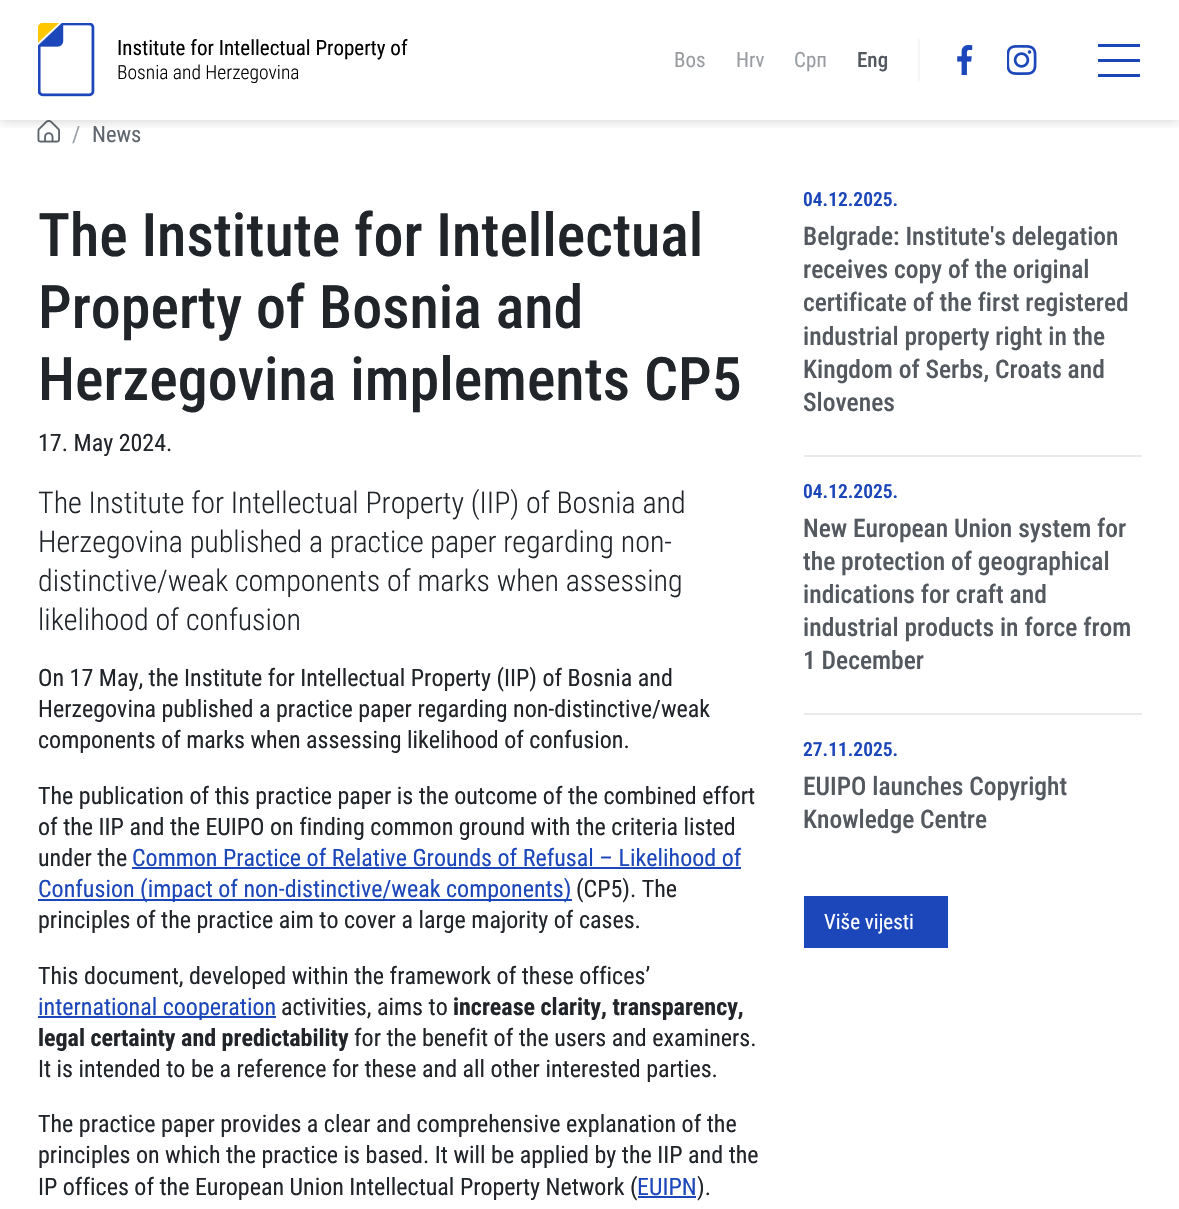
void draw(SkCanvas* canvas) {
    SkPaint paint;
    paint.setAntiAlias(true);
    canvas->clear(0xFFFFFFFF);
    canvas->drawImageRect(SkImages::DeferredFromEncodedData(SkData::MakeFromFileName("img4.png")), SkRect::MakeXYWH(37, 120, 23, 23), SkSamplingOptions());
    canvas->save();
    canvas->clipRect(SkRect::MakeXYWH(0, 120, 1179, 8));
    paint.setColor(0x33000000);
    paint.setMaskFilter(SkMaskFilter::MakeBlur(kNormal_SkBlurStyle, 6));
    canvas->drawRect(SkRect::MakeXYWH(0, 0, 1179, 120), paint);
    paint.setMaskFilter(nullptr);
    canvas->restore();
    canvas->drawImageRect(SkImages::DeferredFromEncodedData(SkData::MakeFromFileName("img1.png")), SkRect::MakeXYWH(38, 23, 57, 74), SkSamplingOptions());
    SkFont font1(fontMgr->matchFamilyStyle("Roboto Condensed", SkFontStyle::Normal()), 21);
    font1.setSubpixel(true);
    paint.setColor(0xFF000000);
    canvas->drawString("Institute for Intellectual Property of", 117, 55, font1, paint);
    SkFont font2(fontMgr->matchFamilyStyle("Roboto Condensed", SkFontStyle(300, SkFontStyle::kNormal_Width, SkFontStyle::kUpright_Slant)), 19.5f);
    font2.setSubpixel(true);
    canvas->drawString("Bosnia and Herzegovina", 117, 79, font2, paint);
    paint.setColor(0xFF999DA1);
    canvas->drawString("Bos", 674, 67, font1, paint);
    canvas->drawString("Hrv", 736, 67, font1, paint);
    canvas->drawString("Срп", 794, 67, font1, paint);
    SkFont font3(fontMgr->matchFamilyStyle("Roboto Condensed", SkFontStyle(500, SkFontStyle::kNormal_Width, SkFontStyle::kUpright_Slant)), 21);
    font3.setSubpixel(true);
    paint.setColor(0xFF54595F);
    canvas->drawString("Eng", 857, 67, font3, paint);
    paint.setColor(0xFFF6F6F7);
    canvas->drawRect(SkRect::MakeXYWH(918, 39, 2, 42), paint);
    canvas->drawImageRect(SkImages::DeferredFromEncodedData(SkData::MakeFromFileName("img2.png")), SkRect::MakeXYWH(957, 45, 16, 30), SkSamplingOptions());
    canvas->drawImageRect(SkImages::DeferredFromEncodedData(SkData::MakeFromFileName("img3.png")), SkRect::MakeXYWH(1007, 45, 30, 30), SkSamplingOptions());
    paint.setColor(0xFF1C47BA);
    canvas->drawRect(SkRect::MakeXYWH(1098, 59, 42, 3), paint);
    canvas->drawRect(SkRect::MakeXYWH(1098, 44, 42, 3), paint);
    canvas->drawRect(SkRect::MakeXYWH(1098, 74, 42, 3), paint);
    SkFont font4(fontMgr->matchFamilyStyle("Roboto Condensed", SkFontStyle::Normal()), 22.5f);
    font4.setSubpixel(true);
    paint.setColor(0xFF9BA0A7);
    canvas->drawString("/", 72, 142, font4, paint);
    paint.setColor(0xFF60666D);
    canvas->drawString("News", 92, 142, font4, paint);
    SkFont font5(fontMgr->matchFamilyStyle("Roboto Condensed", SkFontStyle(500, SkFontStyle::kNormal_Width, SkFontStyle::kUpright_Slant)), 60);
    font5.setSubpixel(true);
    paint.setColor(0xFF212529);
    canvas->drawString("The Institute for Intellectual", 38, 256, font5, paint);
    canvas->drawString("Property of Bosnia and", 38, 328, font5, paint);
    canvas->drawString("Herzegovina implements CP5", 38, 400, font5, paint);
    SkFont font6(fontMgr->matchFamilyStyle("Roboto Condensed", SkFontStyle::Normal()), 24);
    font6.setSubpixel(true);
    canvas->drawString("17. May 2024.", 38, 451, font6, paint);
    SkFont font7(fontMgr->matchFamilyStyle("Roboto Condensed", SkFontStyle(300, SkFontStyle::kNormal_Width, SkFontStyle::kUpright_Slant)), 30);
    font7.setSubpixel(true);
    canvas->drawString("The Institute for Intellectual Property (IIP) of Bosnia and", 38, 513, font7, paint);
    canvas->drawString("Herzegovina published a practice paper regarding non-", 38, 552, font7, paint);
    canvas->drawString("distinctive/weak components of marks when assessing", 38, 591, font7, paint);
    canvas->drawString("likelihood of confusion", 38, 630, font7, paint);
    canvas->drawString("On 17 May, the Institute for Intellectual Property (IIP) of Bosnia and", 38, 686, font6, paint);
    canvas->drawString("Herzegovina published a practice paper regarding non-distinctive/weak", 38, 717, font6, paint);
    canvas->drawString("components of marks when assessing likelihood of confusion.", 38, 748, font6, paint);
    canvas->drawString("The publication of this practice paper is the outcome of the combined effort", 38, 804, font6, paint);
    canvas->drawString("of the IIP and the EUIPO on finding common ground with the criteria listed", 38, 835, font6, paint);
    canvas->drawString("under the", 38, 866, font6, paint);
    paint.setColor(0xFF1C47BA);
    canvas->drawString("Common Practice of Relative Grounds of Refusal – Likelihood of", 132, 866, font6, paint);
    canvas->drawRect(SkRect::MakeXYWH(132, 867, 609, 2), paint);
    canvas->drawRect(SkRect::MakeXYWH(38, 899, 534, 2), paint);
    canvas->drawString("Confusion (impact of non-distinctive/weak components)", 38, 897, font6, paint);
    paint.setColor(0xFF212529);
    canvas->drawString("(CP5). The", 576, 897, font6, paint);
    canvas->drawString("principles of the practice aim to cover a large majority of cases.", 38, 928, font6, paint);
    canvas->drawString("This document, developed within the framework of these offices’", 38, 984, font6, paint);
    paint.setColor(0xFF1C47BA);
    canvas->drawRect(SkRect::MakeXYWH(38, 1016, 238, 2), paint);
    canvas->drawString("international cooperation", 38, 1015, font6, paint);
    paint.setColor(0xFF212529);
    canvas->drawString("activities, aims to", 281, 1015, font6, paint);
    SkFont font8(fontMgr->matchFamilyStyle("Roboto Condensed", SkFontStyle::Bold()), 24);
    font8.setSubpixel(true);
    canvas->drawString("increase clarity, transparency,", 453, 1015, font8, paint);
    canvas->drawString("legal certainty and predictability", 38, 1046, font8, paint);
    canvas->drawString("for the benefit of the users and examiners.", 354, 1046, font6, paint);
    canvas->drawString("It is intended to be a reference for these and all other interested parties.", 38, 1077, font6, paint);
    canvas->drawString("The practice paper provides a clear and comprehensive explanation of the", 38, 1132, font6, paint);
    canvas->drawString("principles on which the practice is based. It will be applied by the IIP and the", 38, 1163, font6, paint);
    canvas->drawString("IP offices of the European Union Intellectual Property Network (", 38, 1195, font6, paint);
    paint.setColor(0xFF1C47BA);
    canvas->drawString("EUIPN", 637, 1195, font6, paint);
    canvas->drawRect(SkRect::MakeXYWH(638, 1196, 58, 2), paint);
    paint.setColor(0xFF212529);
    canvas->drawString(").", 697, 1195, font6, paint);
    paint.setColor(0xFFE9EAEA);
    canvas->drawRect(SkRect::MakeXYWH(804, 455, 338, 2), paint);
    SkFont font9(fontMgr->matchFamilyStyle("Roboto Condensed", SkFontStyle(600, SkFontStyle::kNormal_Width, SkFontStyle::kUpright_Slant)), 19.5f);
    font9.setSubpixel(true);
    paint.setColor(0xFF1C47BA);
    canvas->drawString("04.12.2025.", 803, 206, font9, paint);
    SkFont font10(fontMgr->matchFamilyStyle("Roboto Condensed", SkFontStyle(500, SkFontStyle::kNormal_Width, SkFontStyle::kUpright_Slant)), 25.5f);
    font10.setSubpixel(true);
    paint.setColor(0xFF54595F);
    canvas->drawString("Belgrade: Institute's delegation", 803, 245, font10, paint);
    canvas->drawString("receives copy of the original", 803, 278, font10, paint);
    canvas->drawString("certificate of the first registered", 803, 311, font10, paint);
    canvas->drawString("industrial property right in the", 803, 345, font10, paint);
    canvas->drawString("Kingdom of Serbs, Croats and", 803, 378, font10, paint);
    canvas->drawString("Slovenes", 803, 411, font10, paint);
    paint.setColor(0xFFE9EAEA);
    canvas->drawRect(SkRect::MakeXYWH(804, 713, 338, 2), paint);
    paint.setColor(0xFF1C47BA);
    canvas->drawString("04.12.2025.", 803, 498, font9, paint);
    paint.setColor(0xFF54595F);
    canvas->drawString("New European Union system for", 803, 537, font10, paint);
    canvas->drawString("the protection of geographical", 803, 570, font10, paint);
    canvas->drawString("indications for craft and", 803, 603, font10, paint);
    canvas->drawString("industrial products in force from", 803, 636, font10, paint);
    canvas->drawString("1 December", 803, 669, font10, paint);
    paint.setColor(0xFF1C47BA);
    canvas->drawString("27.11.2025.", 803, 756, font9, paint);
    paint.setColor(0xFF54595F);
    canvas->drawString("EUIPO launches Copyright", 803, 795, font10, paint);
    canvas->drawString("Knowledge Centre", 803, 828, font10, paint);
    paint.setColor(0xFF1C47BA);
    canvas->drawRect(SkRect::MakeXYWH(804, 896, 144, 52), paint);
    paint.setColor(0xFFFFFFFF);
    canvas->drawString("Više vijesti", 824, 929, font1, paint);
}
